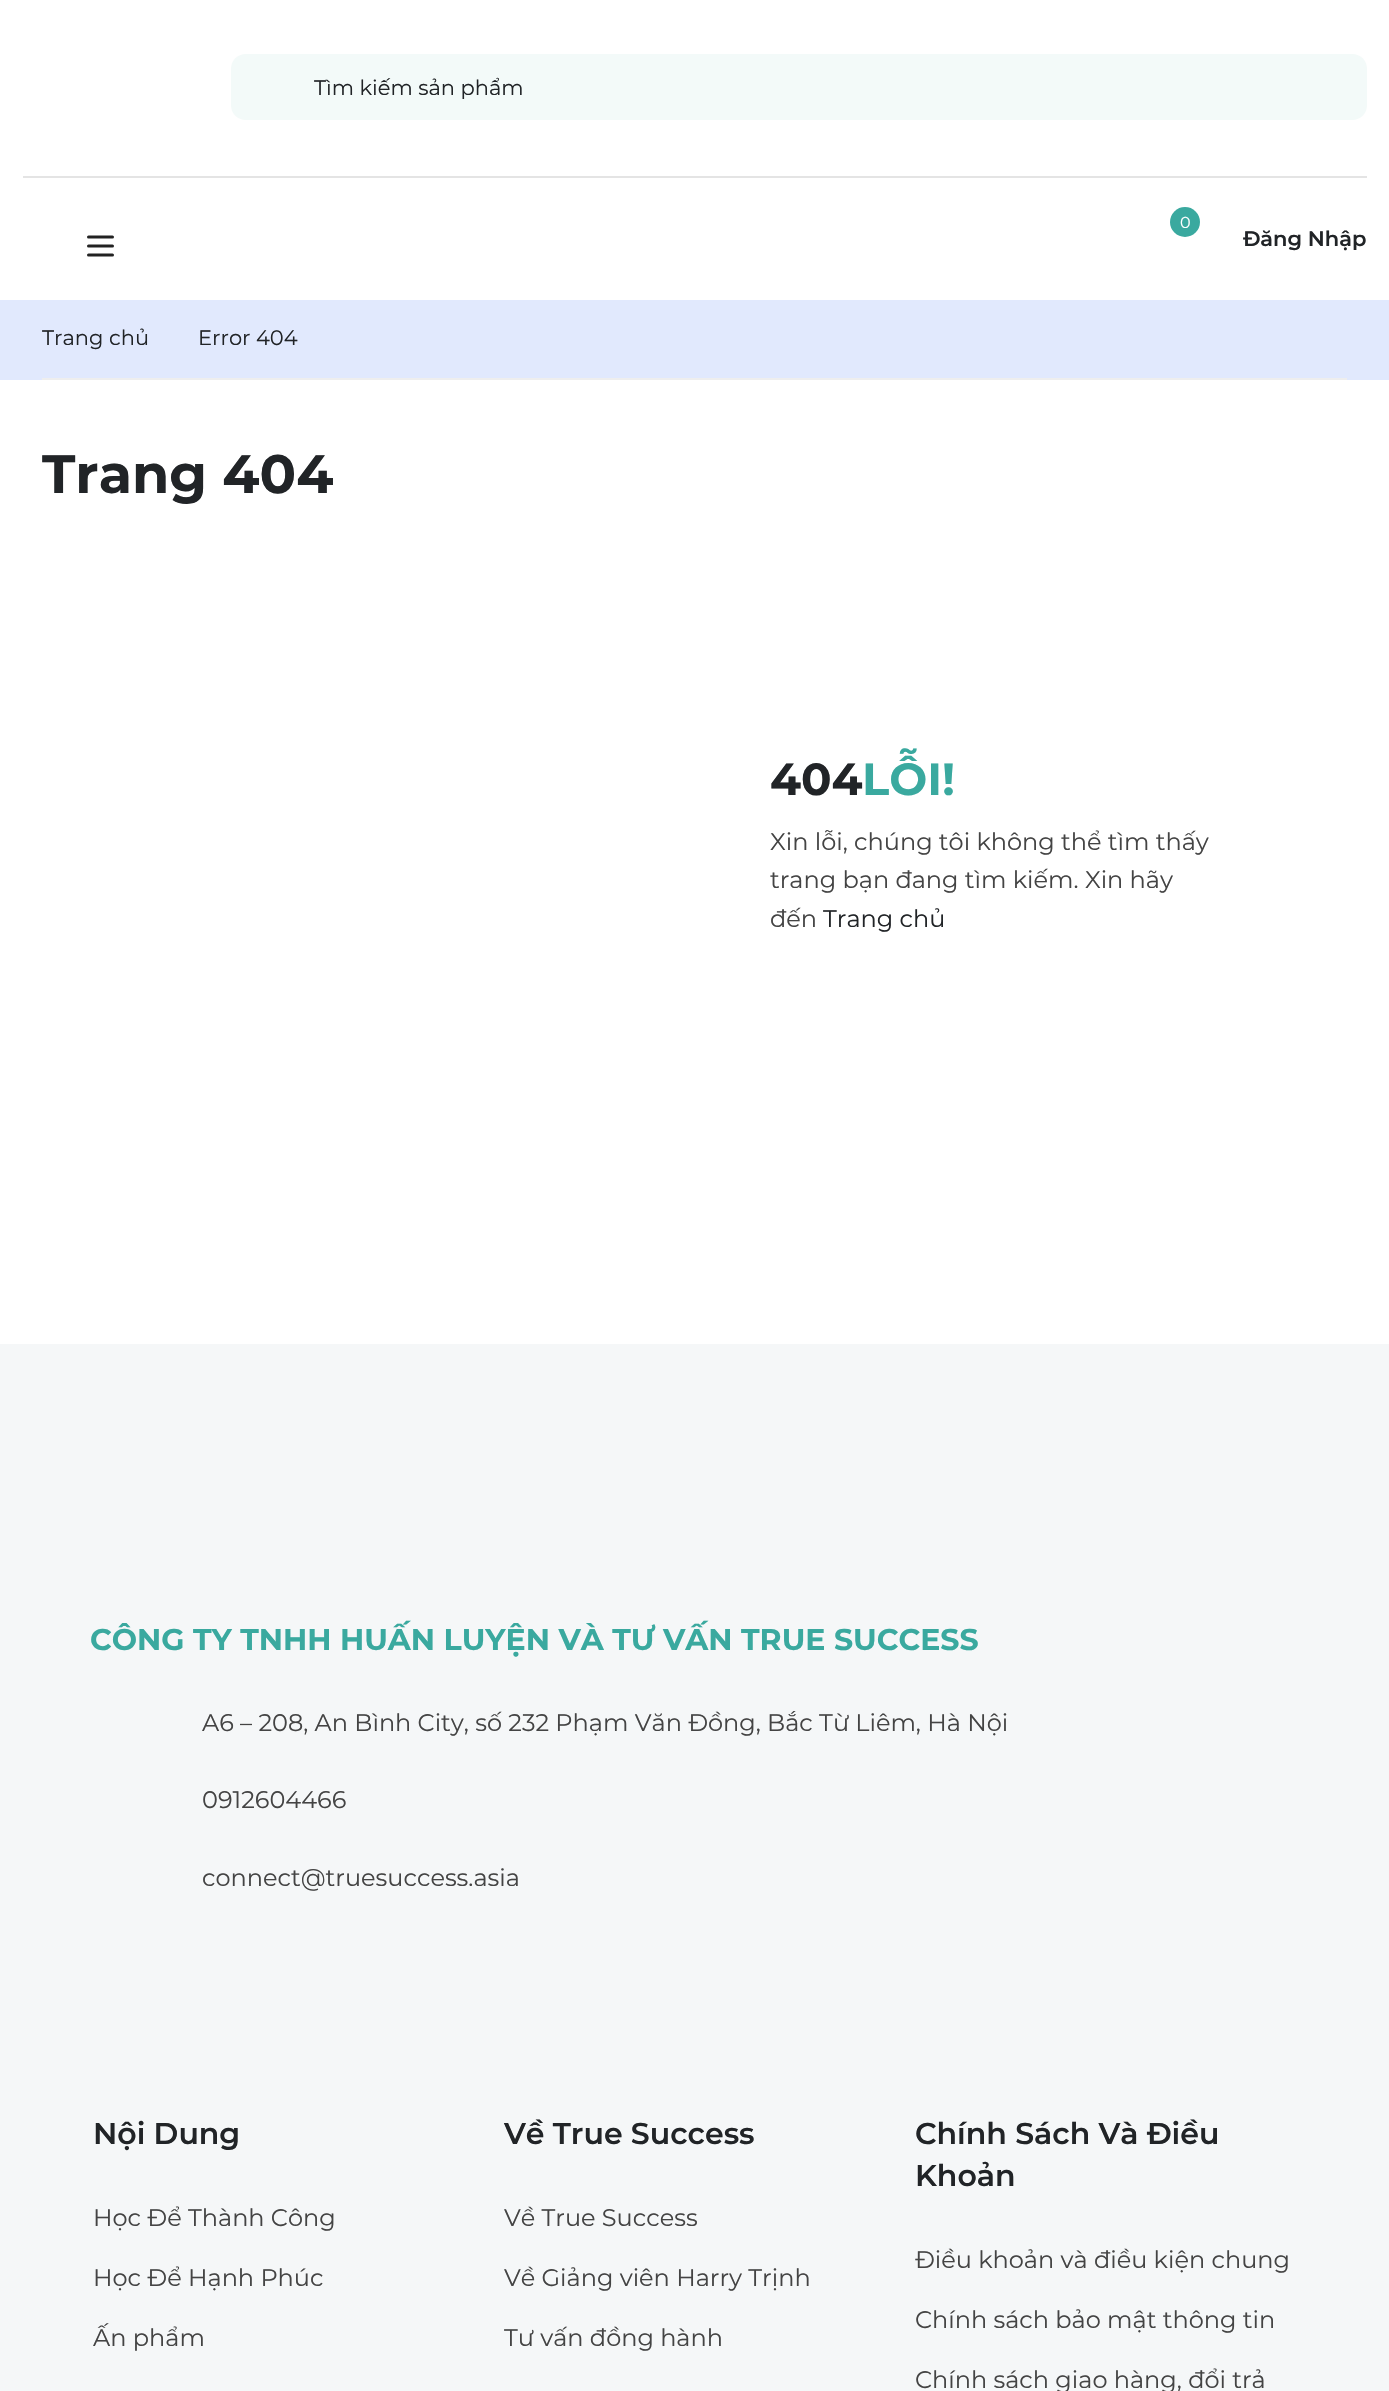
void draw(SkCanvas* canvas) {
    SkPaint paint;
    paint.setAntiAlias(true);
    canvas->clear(0xFFFFFFFF);
    paint.setColor(0xFFF3FAF9);
    canvas->drawPath(SkPathBuilder().moveTo(246, 54).lineTo(314, 54).lineTo(314, 120).lineTo(246, 120).cubicTo(237.5f, 120, 231, 113.5f, 231, 105).lineTo(231, 69).cubicTo(231, 60.5f, 237.5f, 54, 246, 54).close().detach(), paint);
    canvas->drawPath(SkPathBuilder().moveTo(314, 54).lineTo(1352, 54).cubicTo(1360.5f, 54, 1367, 60.5f, 1367, 69).lineTo(1367, 105).cubicTo(1367, 113.5f, 1360.5f, 120, 1352, 120).lineTo(314, 120).close().detach(), paint);
    SkFont font1(fontMgr->matchFamilyStyle("Montserrat", SkFontStyle::Normal()), 21);
    font1.setSubpixel(true);
    paint.setColor(0xFF212427);
    canvas->drawString("Tìm kiếm sản phẩm", 314, 95, font1, paint);
    paint.setColor(0xFFE4E4E4);
    canvas->drawRect(SkRect::MakeXYWH(23, 176, 1344, 2), paint);
    paint.setStyle(SkPaint::kStroke_Style);
    paint.setStrokeWidth(3);
    paint.setStrokeCap(SkPaint::kRound_Cap);
    paint.setStrokeJoin(SkPaint::kRound_Join);
    paint.setColor(0xFF222222);
    canvas->drawPath(SkPathBuilder().moveTo(88.5f, 237).lineTo(112.5f, 237).moveTo(88.5f, 246).lineTo(112.5f, 246).moveTo(88.5f, 255).lineTo(112.5f, 255).detach(), paint);
    paint.setStyle(SkPaint::kFill_Style);
    paint.setColor(0xFF3AA99F);
    canvas->drawCircle(1185, 222, 15, paint);
    SkFont font2(fontMgr->matchFamilyStyle("Montserrat", SkFontStyle::Normal()), 16);
    font2.setSubpixel(true);
    paint.setColor(0xFFFFFFFF);
    canvas->drawString("0", 1180, 228, font2, paint);
    SkFont font3(fontMgr->matchFamilyStyle("Montserrat", SkFontStyle(600, SkFontStyle::kNormal_Width, SkFontStyle::kUpright_Slant)), 21);
    font3.setSubpixel(true);
    paint.setColor(0xFF212427);
    canvas->drawString("Đăng Nhập", 1243, 246, font3, paint);
    paint.setColor(0xFFE1E9FD);
    canvas->drawRect(SkRect::MakeXYWH(0, 300, 1389, 80), paint);
    paint.setColor(0xFFEEEEEE);
    canvas->drawRect(SkRect::MakeXYWH(42, 378, 1305, 2), paint);
    paint.setColor(0xFF212427);
    canvas->drawString("Trang chủ", 42, 345, font1, paint);
    canvas->drawString("Error 404", 198, 345, font1, paint);
    SkFont font4(fontMgr->matchFamilyStyle("Montserrat", SkFontStyle::Bold()), 54);
    font4.setSubpixel(true);
    canvas->drawString("Trang 404", 42, 493, font4, paint);
    SkFont font5(fontMgr->matchFamilyStyle("Montserrat", SkFontStyle::Bold()), 45);
    font5.setSubpixel(true);
    canvas->drawString("404", 770, 795, font5, paint);
    paint.setColor(0xFF3AA99F);
    canvas->drawString("LỖI!", 862, 795, font5, paint);
    SkFont font6(fontMgr->matchFamilyStyle("Montserrat", SkFontStyle::Normal()), 24);
    font6.setSubpixel(true);
    paint.setColor(0xFF444444);
    canvas->drawString("Xin lỗi, chúng tôi không thể tìm thấy", 770, 850, font6, paint);
    canvas->drawString("trang bạn đang tìm kiếm. Xin hãy", 770, 888, font6, paint);
    canvas->drawString("đến", 770, 927, font6, paint);
    paint.setColor(0xFF212427);
    canvas->drawString("Trang chủ", 823, 927, font6, paint);
    paint.setColor(0xFFF5F7F8);
    canvas->drawRect(SkRect::MakeXYWH(0, 1344, 1389, 1047), paint);
    SkFont font7(fontMgr->matchFamilyStyle("Montserrat", SkFontStyle::Bold()), 30);
    font7.setSubpixel(true);
    paint.setColor(0xFF3AA99F);
    canvas->drawString("CÔNG TY TNHH HUẤN LUYỆN VÀ TƯ VẤN TRUE SUCCESS", 90, 1650, font7, paint);
    paint.setColor(0xFF444444);
    canvas->drawString("A6 – 208, An Bình City, số 232 Phạm Văn Đồng, Bắc Từ Liêm, Hà Nội", 202, 1731, font6, paint);
    canvas->drawString("0912604466", 202, 1808, font6, paint);
    canvas->drawString("connect@truesuccess.asia", 202, 1886, font6, paint);
    SkFont font8(fontMgr->matchFamilyStyle("Montserrat", SkFontStyle(600, SkFontStyle::kNormal_Width, SkFontStyle::kUpright_Slant)), 30);
    font8.setSubpixel(true);
    paint.setColor(0xFF212427);
    canvas->drawString("Nội Dung", 93, 2144, font8, paint);
    paint.setColor(0xFF444444);
    canvas->drawString("Học Để Thành Công", 93, 2226, font6, paint);
    canvas->drawString("Học Để Hạnh Phúc", 93, 2286, font6, paint);
    canvas->drawString("Ấn phẩm", 93, 2346, font6, paint);
    paint.setColor(0xFF212427);
    canvas->drawString("Về True Success", 504, 2144, font8, paint);
    paint.setColor(0xFF444444);
    canvas->drawString("Về True Success", 504, 2226, font6, paint);
    canvas->drawString("Về Giảng viên Harry Trịnh", 504, 2286, font6, paint);
    canvas->drawString("Tư vấn đồng hành", 504, 2346, font6, paint);
    paint.setColor(0xFF212427);
    canvas->drawString("Chính Sách Và Điều", 915, 2144, font8, paint);
    canvas->drawString("Khoản", 915, 2186, font8, paint);
    paint.setColor(0xFF444444);
    canvas->drawString("Điều khoản và điều kiện chung", 915, 2268, font6, paint);
    canvas->drawString("Chính sách bảo mật thông tin", 915, 2328, font6, paint);
    canvas->drawString("Chính sách giao hàng, đổi trả", 915, 2388, font6, paint);
}
